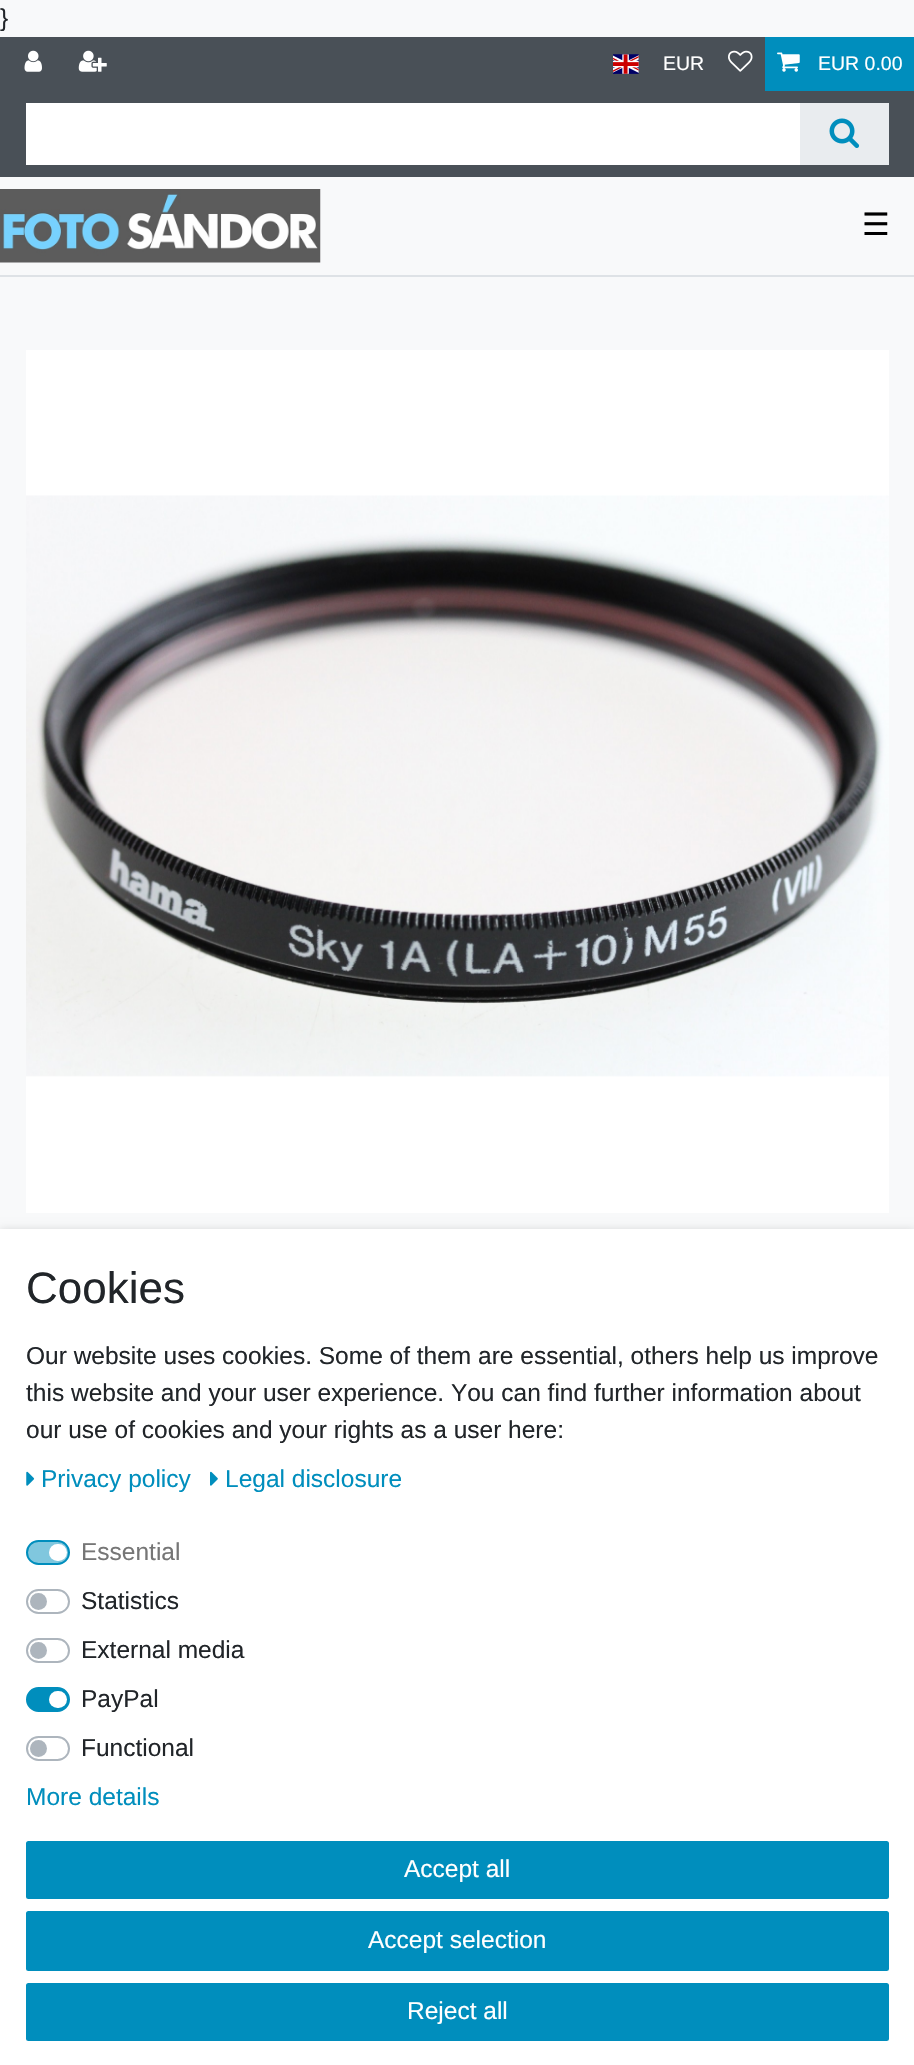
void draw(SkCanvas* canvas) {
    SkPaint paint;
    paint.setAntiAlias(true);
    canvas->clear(0xFFF8F9FA);
    SkFont font1(fontMgr->matchFamilyStyle("Liberation Sans", SkFontStyle::Normal()), 24.5f);
    font1.setSubpixel(true);
    paint.setColor(0xFF212529);
    canvas->drawString("}", 0, 26, font1, paint);
    paint.setColor(0xFF495057);
    canvas->drawRect(SkRect::MakeXYWH(0, 37, 914, 140), paint);
    canvas->drawImageRect(SkImages::DeferredFromEncodedData(SkData::MakeFromFileName("img1.png")), SkRect::MakeXYWH(24, 50, 18, 22), SkSamplingOptions());
    canvas->drawImageRect(SkImages::DeferredFromEncodedData(SkData::MakeFromFileName("img2.png")), SkRect::MakeXYWH(78, 50, 29, 22), SkSamplingOptions());
    canvas->drawImageRect(SkImages::DeferredFromEncodedData(SkData::MakeFromFileName("img3.png")), SkRect::MakeXYWH(613, 54, 26, 20), SkSamplingOptions());
    SkFont font2(fontMgr->matchFamilyStyle("Liberation Sans", SkFontStyle::Normal()), 19.5f);
    font2.setSubpixel(true);
    paint.setColor(0xFFFFFFFF);
    canvas->drawString("EUR", 663, 70, font2, paint);
    canvas->drawImageRect(SkImages::DeferredFromEncodedData(SkData::MakeFromFileName("img4.png")), SkRect::MakeXYWH(728, 50, 25, 22), SkSamplingOptions());
    paint.setColor(0xFF008EBD);
    canvas->drawRect(SkRect::MakeXYWH(765, 37, 149, 54), paint);
    canvas->drawImageRect(SkImages::DeferredFromEncodedData(SkData::MakeFromFileName("img5.png")), SkRect::MakeXYWH(777, 52, 23, 20), SkSamplingOptions());
    paint.setColor(0xFFFFFFFF);
    canvas->drawString("EUR 0.00", 818, 70, font2, paint);
    canvas->drawRect(SkRect::MakeXYWH(26, 103, 774, 62), paint);
    paint.setColor(0xFFE9ECEF);
    canvas->drawRect(SkRect::MakeXYWH(800, 103, 89, 62), paint);
    canvas->drawImageRect(SkImages::DeferredFromEncodedData(SkData::MakeFromFileName("img6.png")), SkRect::MakeXYWH(829, 118, 31, 30), SkSamplingOptions());
    paint.setColor(0xFFDEE2E6);
    canvas->drawRect(SkRect::MakeXYWH(0, 275, 914, 2), paint);
    canvas->drawImageRect(SkImages::DeferredFromEncodedData(SkData::MakeFromFileName("img7.png")), SkRect::MakeXYWH(0, 189, 321, 74), SkSamplingOptions());
    SkFont font3(fontMgr->matchFamilyStyle("DejaVu Sans", SkFontStyle::Normal()), 31);
    font3.setSubpixel(true);
    paint.setColor(0xFF000000);
    canvas->drawString("☰", 862, 235, font3, paint);
    paint.setColor(0xFFFFFFFF);
    canvas->drawRect(SkRect::MakeXYWH(26, 350, 863, 863), paint);
    canvas->drawImageRect(SkImages::DeferredFromEncodedData(SkData::MakeFromFileName("img8.png")), SkRect::MakeXYWH(26, 495, 863, 582), SkSamplingOptions());
    paint.setColor(0x26000000);
    paint.setMaskFilter(SkMaskFilter::MakeBlur(kNormal_SkBlurStyle, 4.5f));
    canvas->drawRect(SkRect::MakeXYWH(0, 1230, 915, 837), paint);
    paint.setMaskFilter(nullptr);
    paint.setColor(0xFFFFFFFF);
    canvas->drawRect(SkRect::MakeXYWH(0, 1229, 914, 836), paint);
    SkFont font4(fontMgr->matchFamilyStyle("Liberation Sans", SkFontStyle::Normal()), 44);
    font4.setSubpixel(true);
    paint.setColor(0xFF212529);
    canvas->drawString("Cookies", 26, 1303, font4, paint);
    canvas->drawString("Our website uses cookies. Some of them are essential, others help us improve", 26, 1364, font1, paint);
    canvas->drawString("this website and your user experience. You can find further information about", 26, 1401, font1, paint);
    canvas->drawString("our use of cookies and your rights as a user here:", 26, 1438, font1, paint);
    canvas->drawImageRect(SkImages::DeferredFromEncodedData(SkData::MakeFromFileName("img9.png")), SkRect::MakeXYWH(26, 1471, 9, 15), SkSamplingOptions());
    paint.setColor(0xFF008EBD);
    canvas->drawString("Privacy policy", 41, 1487, font1, paint);
    canvas->drawImageRect(SkImages::DeferredFromEncodedData(SkData::MakeFromFileName("img10.png")), SkRect::MakeXYWH(210, 1471, 8, 15), SkSamplingOptions());
    canvas->drawString("Legal disclosure", 225, 1487, font1, paint);
    paint.setColor(0xFF80C7DE);
    canvas->drawRoundRect(SkRect::MakeXYWH(27, 1541, 42, 23), 11.5f, 11.5f, paint);
    paint.setStyle(SkPaint::kStroke_Style);
    paint.setStrokeWidth(2);
    paint.setColor(0xFF008EBD);
    canvas->drawRoundRect(SkRect::MakeXYWH(27, 1541, 42, 23), 11.5f, 11.5f, paint);
    paint.setStyle(SkPaint::kFill_Style);
    paint.setColor(0xFF767676);
    canvas->drawString("Essential", 81, 1560, font1, paint);
    paint.setColor(0xFFFFFFFF);
    canvas->drawRoundRect(SkRect::MakeXYWH(49, 1544, 18, 17), 8.5f, 8.5f, paint);
    paint.setStyle(SkPaint::kStroke_Style);
    paint.setColor(0xFFADB5BD);
    canvas->drawRoundRect(SkRect::MakeXYWH(27, 1590, 42, 23), 11.5f, 11.5f, paint);
    paint.setStyle(SkPaint::kFill_Style);
    paint.setColor(0xFF212529);
    canvas->drawString("Statistics", 81, 1609, font1, paint);
    paint.setColor(0xFFADB5BD);
    canvas->drawCircle(38.5f, 1601.5f, 8.5f, paint);
    paint.setStyle(SkPaint::kStroke_Style);
    canvas->drawRoundRect(SkRect::MakeXYWH(27, 1639, 42, 23), 11.5f, 11.5f, paint);
    paint.setStyle(SkPaint::kFill_Style);
    paint.setColor(0xFF212529);
    canvas->drawString("External media", 81, 1658, font1, paint);
    paint.setColor(0xFFADB5BD);
    canvas->drawCircle(38.5f, 1650.5f, 8.5f, paint);
    paint.setColor(0xFF008EBD);
    canvas->drawRoundRect(SkRect::MakeXYWH(27, 1688, 42, 23), 11.5f, 11.5f, paint);
    paint.setStyle(SkPaint::kStroke_Style);
    canvas->drawRoundRect(SkRect::MakeXYWH(27, 1688, 42, 23), 11.5f, 11.5f, paint);
    paint.setStyle(SkPaint::kFill_Style);
    paint.setColor(0xFF212529);
    canvas->drawString("PayPal", 81, 1707, font1, paint);
    paint.setColor(0xFFFFFFFF);
    canvas->drawRoundRect(SkRect::MakeXYWH(49, 1691, 18, 17), 8.5f, 8.5f, paint);
    paint.setStyle(SkPaint::kStroke_Style);
    paint.setColor(0xFFADB5BD);
    canvas->drawRoundRect(SkRect::MakeXYWH(27, 1737, 42, 23), 11.5f, 11.5f, paint);
    paint.setStyle(SkPaint::kFill_Style);
    paint.setColor(0xFF212529);
    canvas->drawString("Functional", 81, 1756, font1, paint);
    paint.setColor(0xFFADB5BD);
    canvas->drawCircle(38.5f, 1748.5f, 8.5f, paint);
    paint.setColor(0xFF008EBD);
    canvas->drawString("More details", 26, 1805, font1, paint);
    canvas->drawRoundRect(SkRect::MakeXYWH(27, 1842, 861, 56), 1.5f, 1.5f, paint);
    paint.setStyle(SkPaint::kStroke_Style);
    canvas->drawRoundRect(SkRect::MakeXYWH(27, 1842, 861, 56), 1.5f, 1.5f, paint);
    paint.setStyle(SkPaint::kFill_Style);
    paint.setColor(0xFFFFFFFF);
    canvas->drawString("Accept all", 404, 1877, font1, paint);
    paint.setColor(0xFF008EBD);
    canvas->drawRoundRect(SkRect::MakeXYWH(27, 1912, 861, 58), 1.5f, 1.5f, paint);
    paint.setStyle(SkPaint::kStroke_Style);
    canvas->drawRoundRect(SkRect::MakeXYWH(27, 1912, 861, 58), 1.5f, 1.5f, paint);
    paint.setStyle(SkPaint::kFill_Style);
    paint.setColor(0xFFFFFFFF);
    canvas->drawString("Accept selection", 368, 1948, font1, paint);
    paint.setColor(0xFF008EBD);
    canvas->drawRoundRect(SkRect::MakeXYWH(27, 1984, 861, 56), 1.5f, 1.5f, paint);
    paint.setStyle(SkPaint::kStroke_Style);
    canvas->drawRoundRect(SkRect::MakeXYWH(27, 1984, 861, 56), 1.5f, 1.5f, paint);
    paint.setStyle(SkPaint::kFill_Style);
    paint.setColor(0xFFFFFFFF);
    canvas->drawString("Reject all", 407, 2019, font1, paint);
}
